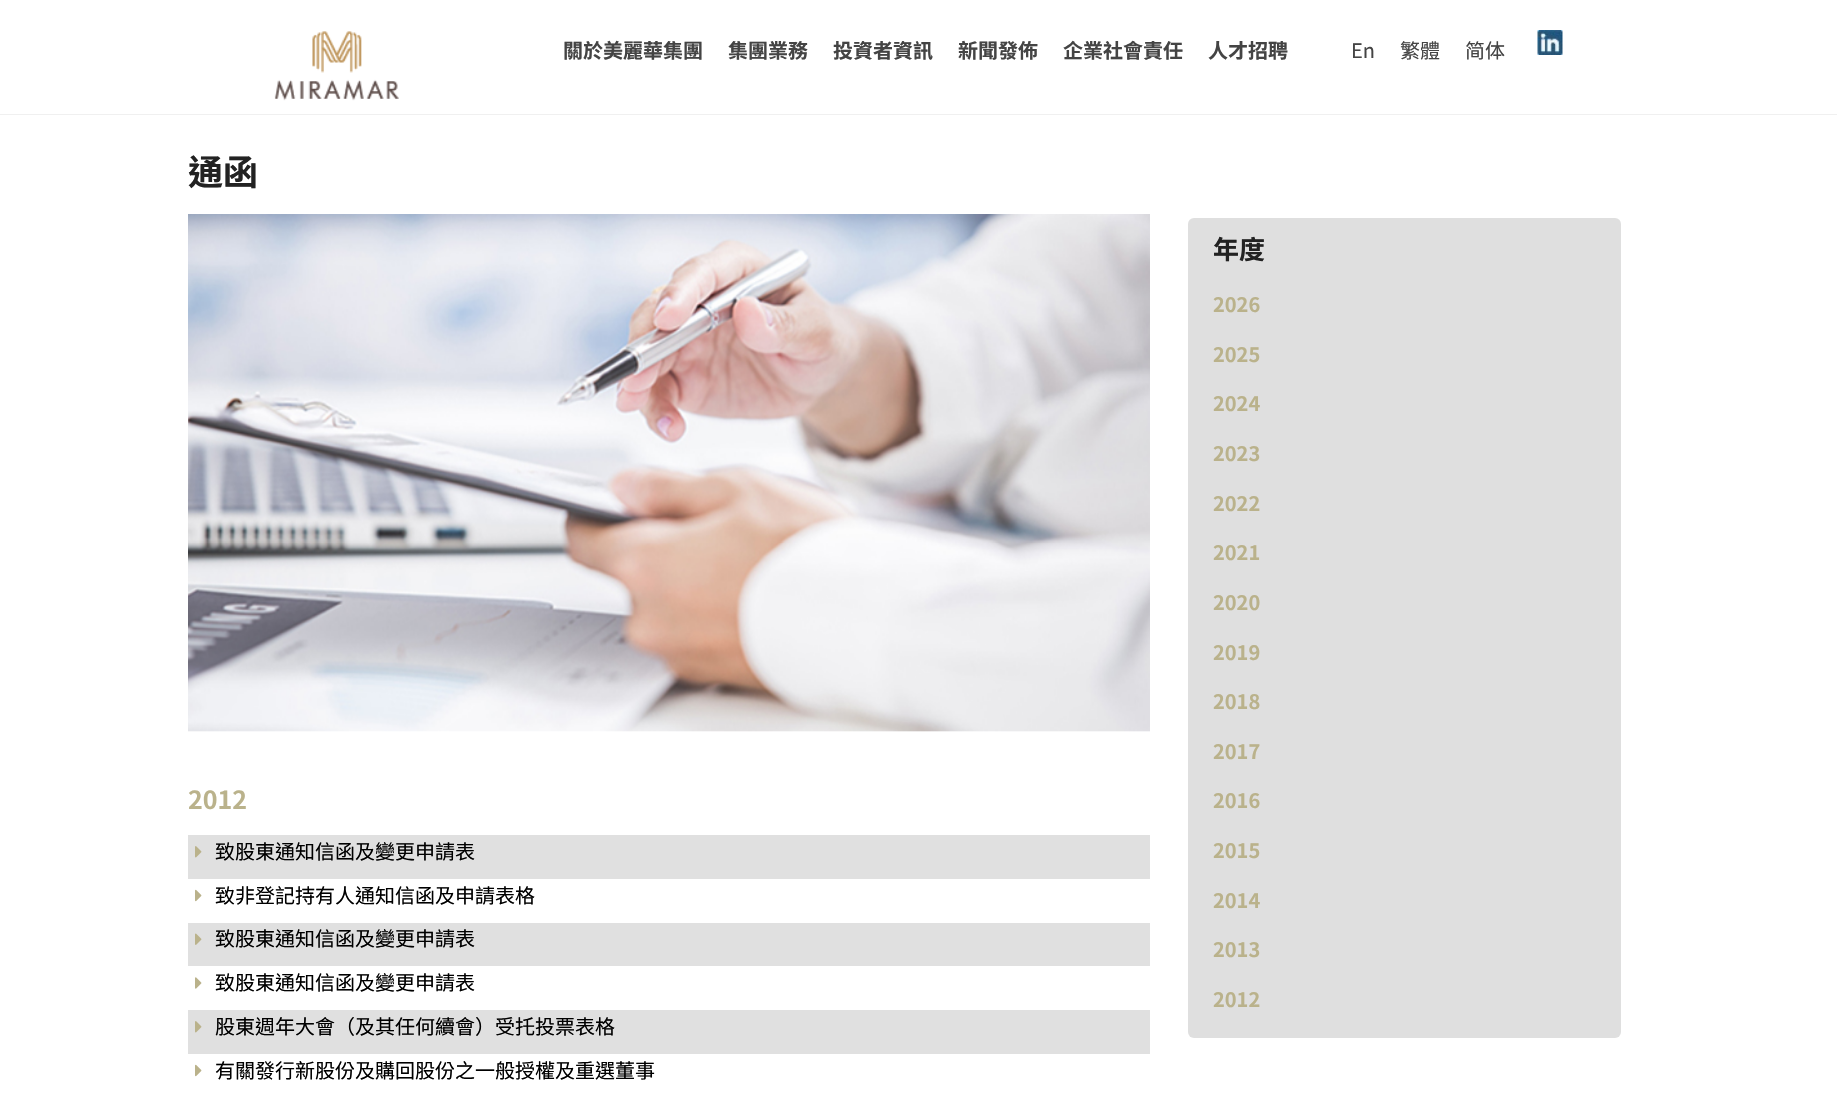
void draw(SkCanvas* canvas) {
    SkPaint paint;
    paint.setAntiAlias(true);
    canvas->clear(0xFFFFFFFF);
    paint.setColor(0xFFF0F0F0);
    canvas->drawRect(SkRect::MakeXYWH(0, 114, 1837, 1), paint);
    canvas->drawImageRect(SkImages::DeferredFromEncodedData(SkData::MakeFromFileName("img1.png")), SkRect::MakeXYWH(274, 31, 125, 70), SkSamplingOptions());
    SkFont font1(fontMgr->matchFamilyStyle("Noto Sans CJK TC", SkFontStyle::Bold()), 20);
    font1.setSubpixel(true);
    paint.setColor(0xFF444444);
    canvas->drawString("關於美麗華集團", 563, 58, font1, paint);
    canvas->drawString("集團業務", 728, 58, font1, paint);
    canvas->drawString("投資者資訊", 833, 58, font1, paint);
    canvas->drawString("新聞發佈", 958, 58, font1, paint);
    canvas->drawString("企業社會責任", 1063, 58, font1, paint);
    canvas->drawString("人才招聘", 1208, 58, font1, paint);
    SkFont font2(fontMgr->matchFamilyStyle("Noto Sans CJK TC", SkFontStyle::Normal()), 20);
    font2.setSubpixel(true);
    canvas->drawString("En", 1351, 58, font2, paint);
    canvas->drawString("繁體", 1400, 58, font2, paint);
    canvas->drawString("简体", 1465, 58, font2, paint);
    canvas->drawImageRect(SkImages::DeferredFromEncodedData(SkData::MakeFromFileName("img2.png")), SkRect::MakeXYWH(1537, 30, 26, 25), SkSamplingOptions());
    SkFont font3(fontMgr->matchFamilyStyle("Noto Sans CJK TC", SkFontStyle::Bold()), 35);
    font3.setSubpixel(true);
    paint.setColor(0xFF222222);
    canvas->drawString("通函", 188, 185, font3, paint);
    canvas->drawImageRect(SkImages::DeferredFromEncodedData(SkData::MakeFromFileName("img3.png")), SkRect::MakeXYWH(188, 214, 962, 518), SkSamplingOptions());
    SkFont font4(fontMgr->matchFamilyStyle("Noto Sans CJK TC", SkFontStyle::Bold()), 25);
    font4.setSubpixel(true);
    paint.setColor(0xFFBAB28B);
    canvas->drawString("2012", 188, 809, font4, paint);
    paint.setColor(0xFFE0E0E0);
    canvas->drawRect(SkRect::MakeXYWH(188, 835, 962, 44), paint);
    canvas->drawImageRect(SkImages::DeferredFromEncodedData(SkData::MakeFromFileName("img4.png")), SkRect::MakeXYWH(195, 846, 7, 12), SkSamplingOptions());
    paint.setColor(0xFF000000);
    canvas->drawString("致股東通知信函及變更申請表", 215, 859, font2, paint);
    canvas->drawImageRect(SkImages::DeferredFromEncodedData(SkData::MakeFromFileName("img5.png")), SkRect::MakeXYWH(195, 889, 7, 13), SkSamplingOptions());
    canvas->drawString("致非登記持有人通知信函及申請表格", 215, 903, font2, paint);
    paint.setColor(0xFFE0E0E0);
    canvas->drawRect(SkRect::MakeXYWH(188, 923, 962, 43), paint);
    canvas->drawImageRect(SkImages::DeferredFromEncodedData(SkData::MakeFromFileName("img6.png")), SkRect::MakeXYWH(195, 933, 7, 12), SkSamplingOptions());
    paint.setColor(0xFF000000);
    canvas->drawString("致股東通知信函及變更申請表", 215, 946, font2, paint);
    canvas->drawImageRect(SkImages::DeferredFromEncodedData(SkData::MakeFromFileName("img7.png")), SkRect::MakeXYWH(195, 977, 7, 12), SkSamplingOptions());
    canvas->drawString("致股東通知信函及變更申請表", 215, 990, font2, paint);
    paint.setColor(0xFFE0E0E0);
    canvas->drawRect(SkRect::MakeXYWH(188, 1010, 962, 44), paint);
    canvas->drawImageRect(SkImages::DeferredFromEncodedData(SkData::MakeFromFileName("img4.png")), SkRect::MakeXYWH(195, 1021, 7, 12), SkSamplingOptions());
    paint.setColor(0xFF000000);
    canvas->drawString("股東週年大會（及其任何續會）受托投票表格", 215, 1034, font2, paint);
    canvas->drawImageRect(SkImages::DeferredFromEncodedData(SkData::MakeFromFileName("img5.png")), SkRect::MakeXYWH(195, 1064, 7, 13), SkSamplingOptions());
    canvas->drawString("有關發行新股份及購回股份之一般授權及重選董事", 215, 1078, font2, paint);
    paint.setColor(0xFFDFDFDF);
    canvas->drawRoundRect(SkRect::MakeXYWH(1188, 218, 433, 820), 6, 6, paint);
    SkFont font5(fontMgr->matchFamilyStyle("Noto Sans CJK TC", SkFontStyle::Bold()), 26);
    font5.setSubpixel(true);
    paint.setColor(0xFF222222);
    canvas->drawString("年度", 1213, 259, font5, paint);
    paint.setColor(0xFFBAB28B);
    canvas->drawString("2026", 1213, 312, font1, paint);
    canvas->drawString("2025", 1213, 362, font1, paint);
    canvas->drawString("2024", 1213, 411, font1, paint);
    canvas->drawString("2023", 1213, 461, font1, paint);
    canvas->drawString("2022", 1213, 511, font1, paint);
    canvas->drawString("2021", 1213, 560, font1, paint);
    canvas->drawString("2020", 1213, 610, font1, paint);
    canvas->drawString("2019", 1213, 660, font1, paint);
    canvas->drawString("2018", 1213, 709, font1, paint);
    canvas->drawString("2017", 1213, 759, font1, paint);
    canvas->drawString("2016", 1213, 808, font1, paint);
    canvas->drawString("2015", 1213, 858, font1, paint);
    canvas->drawString("2014", 1213, 908, font1, paint);
    canvas->drawString("2013", 1213, 957, font1, paint);
    canvas->drawString("2012", 1213, 1007, font1, paint);
}
